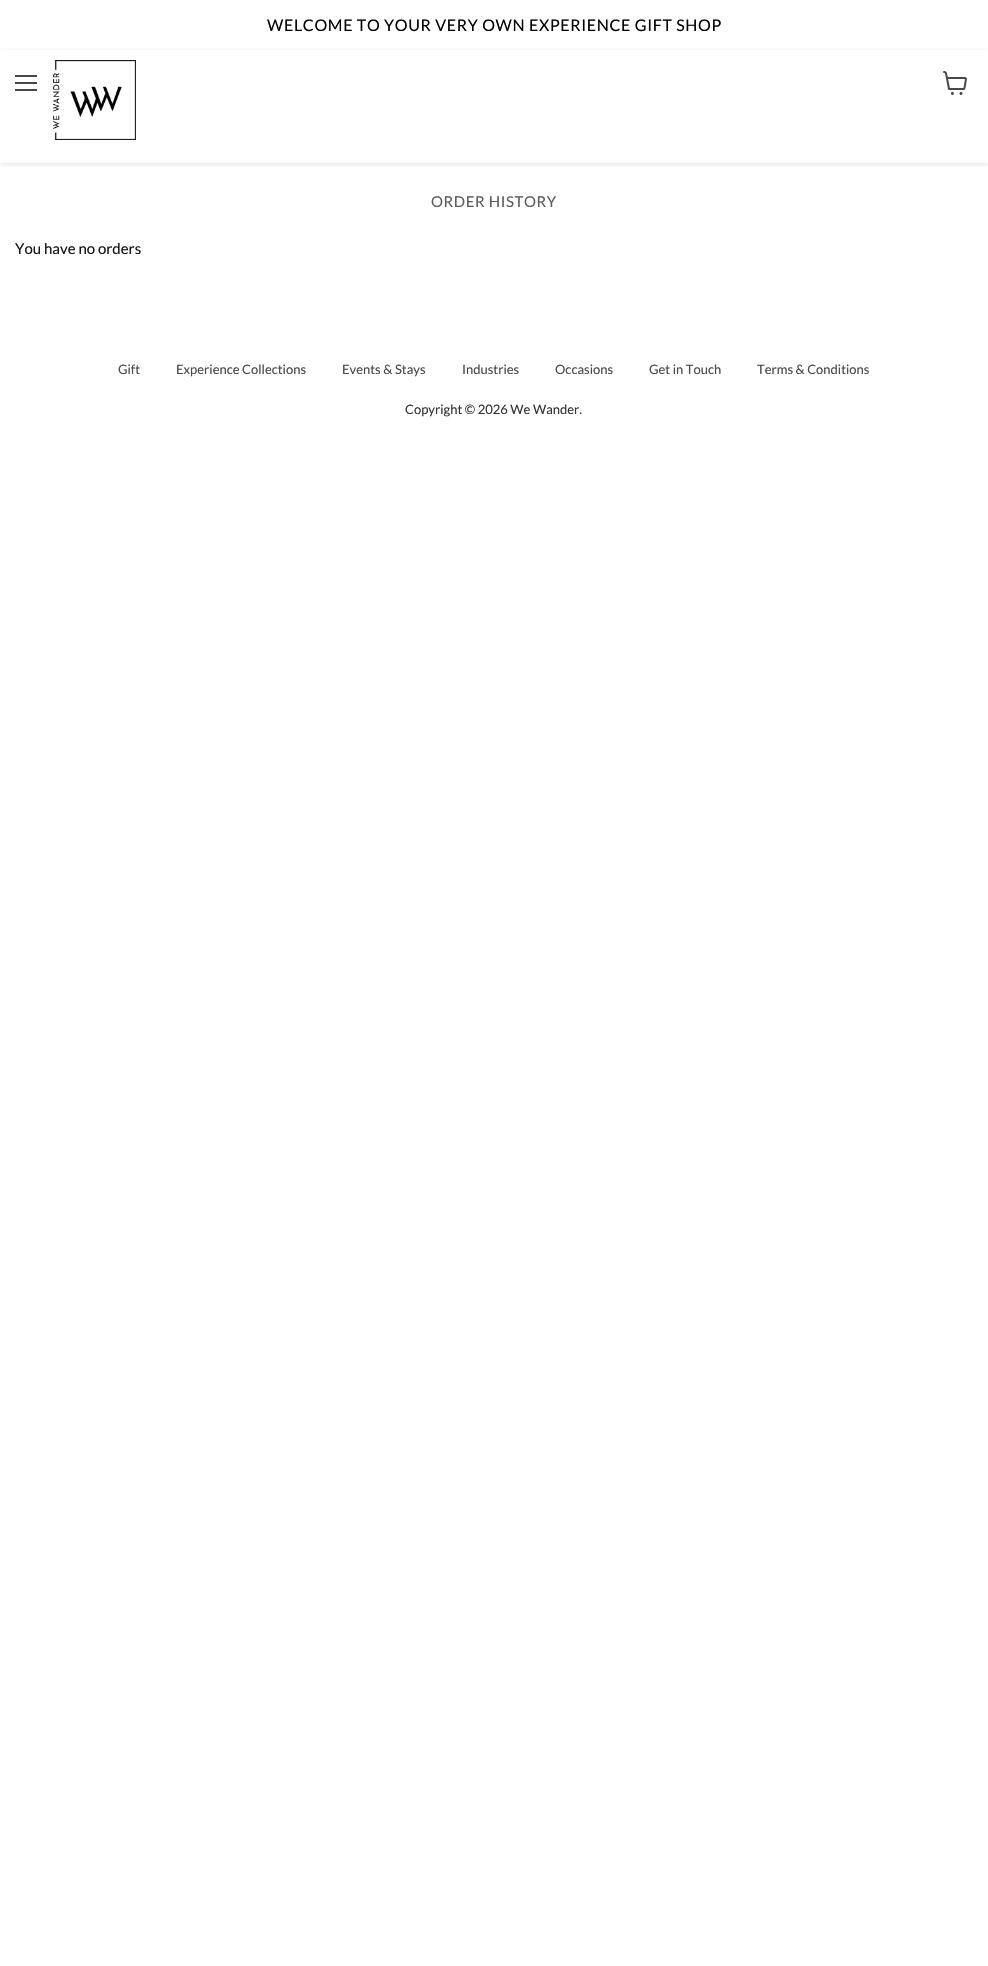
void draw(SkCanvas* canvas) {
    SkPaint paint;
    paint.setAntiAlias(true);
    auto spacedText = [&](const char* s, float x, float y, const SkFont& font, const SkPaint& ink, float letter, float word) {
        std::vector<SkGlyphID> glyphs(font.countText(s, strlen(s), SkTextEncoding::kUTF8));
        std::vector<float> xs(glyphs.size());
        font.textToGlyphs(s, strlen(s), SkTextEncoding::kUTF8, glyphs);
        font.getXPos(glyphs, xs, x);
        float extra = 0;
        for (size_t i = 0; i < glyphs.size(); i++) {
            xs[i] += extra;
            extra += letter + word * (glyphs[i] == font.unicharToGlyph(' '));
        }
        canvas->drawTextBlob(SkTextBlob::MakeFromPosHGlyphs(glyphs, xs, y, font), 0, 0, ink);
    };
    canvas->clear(0xFFFFFFFF);
    SkFont font1(fontMgr->matchFamilyStyle("Lato", SkFontStyle::Normal()), 16);
    font1.setSubpixel(true);
    paint.setColor(0xFF000000);
    spacedText("WELCOME TO YOUR VERY OWN EXPERIENCE GIFT SHOP", 267, 31, font1, paint, 0.65f, 0);
    canvas->save();
    canvas->clipPath(SkPathBuilder(SkPathFillType::kEvenOdd).moveTo(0, 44).lineTo(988, 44).lineTo(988, 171).lineTo(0, 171).close().moveTo(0, 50).lineTo(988, 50).lineTo(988, 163).lineTo(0, 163).close().detach(), true);
    paint.setColor(0x40808080);
    paint.setMaskFilter(SkMaskFilter::MakeBlur(kNormal_SkBlurStyle, 2));
    canvas->drawRect(SkRect::MakeXYWH(0, 51, 988, 113), paint);
    paint.setMaskFilter(nullptr);
    canvas->restore();
    paint.setColor(0xFF484848);
    canvas->drawRect(SkRect::MakeXYWH(15, 75, 22, 2), paint);
    canvas->drawRect(SkRect::MakeXYWH(15, 82, 22, 2), paint);
    canvas->drawRect(SkRect::MakeXYWH(15, 89, 22, 2), paint);
    canvas->drawImageRect(SkImages::DeferredFromEncodedData(SkData::MakeFromFileName("img1.png")), SkRect::MakeXYWH(52, 60, 84, 80), SkSamplingOptions());
    canvas->drawImageRect(SkImages::DeferredFromEncodedData(SkData::MakeFromFileName("img2.png")), SkRect::MakeXYWH(943, 71, 24, 24), SkSamplingOptions());
    SkFont font2(fontMgr->matchFamilyStyle("Lato", SkFontStyle::Normal()), 15);
    font2.setSubpixel(true);
    paint.setColor(0xFF595959);
    spacedText("ORDER HISTORY", 431, 207, font2, paint, 0.6f, 0);
    paint.setColor(0xFF121212);
    canvas->drawString("You have no orders", 15, 254, font2, paint);
    SkFont font3(fontMgr->matchFamilyStyle("Lato", SkFontStyle::Normal()), 13);
    font3.setSubpixel(true);
    paint.setColor(0xFF484848);
    canvas->drawString("Gift", 118, 374, font3, paint);
    canvas->drawString("Experience Collections", 176, 374, font3, paint);
    canvas->drawString("Events & Stays", 342, 374, font3, paint);
    canvas->drawString("Industries", 462, 374, font3, paint);
    canvas->drawString("Occasions", 555, 374, font3, paint);
    canvas->drawString("Get in Touch", 649, 374, font3, paint);
    canvas->drawString("Terms & Conditions", 757, 374, font3, paint);
    paint.setColor(0xFF333333);
    canvas->drawString("Copyright © 2026 We Wander.", 405, 414, font3, paint);
}
